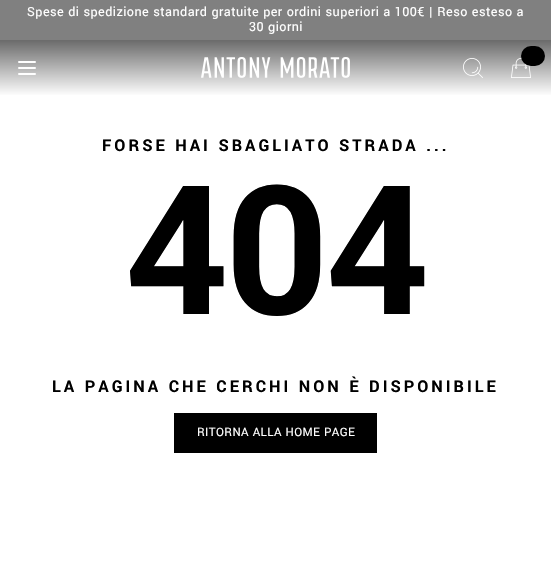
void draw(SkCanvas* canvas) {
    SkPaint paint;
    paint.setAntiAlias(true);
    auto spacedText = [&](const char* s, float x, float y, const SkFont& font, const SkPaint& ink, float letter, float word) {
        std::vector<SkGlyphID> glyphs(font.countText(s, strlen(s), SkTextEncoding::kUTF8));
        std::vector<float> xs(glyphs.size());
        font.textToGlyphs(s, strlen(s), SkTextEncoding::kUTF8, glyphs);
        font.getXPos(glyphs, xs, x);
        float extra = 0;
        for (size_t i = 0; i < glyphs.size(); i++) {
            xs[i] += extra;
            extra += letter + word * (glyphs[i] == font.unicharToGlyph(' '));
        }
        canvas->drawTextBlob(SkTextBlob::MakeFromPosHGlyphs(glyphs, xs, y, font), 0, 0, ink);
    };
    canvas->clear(0xFFFFFFFF);
    {
        const SkColor colors[] = {0xFF000000, 0xFFFFFFFF};
        const float stops[] = {0, 1};
        const SkPoint ends[] = {{376, 0}, {376, 96}};
        paint.setShader(SkGradientShader::MakeLinear(ends, colors, stops, 2, SkTileMode::kClamp));
        paint.setAlpha(255);
    }
    canvas->drawRect(SkRect::MakeXYWH(0, 40, 551, 55), paint);
    paint.setShader(nullptr);
    paint.setColor(0xFF808080);
    canvas->drawRect(SkRect::MakeXYWH(0, 0, 551, 40), paint);
    SkFont font1(fontMgr->matchFamilyStyle("Yantramanav", SkFontStyle::Normal()), 14);
    font1.setSubpixel(true);
    paint.setColor(0xFFFFFFFF);
    spacedText("Spese di spedizione standard gratuite per ordini superiori a 100€ | Reso esteso a", 27, 16, font1, paint, 0.45f, 0);
    spacedText("30 giorni", 249, 31, font1, paint, 0.45f, 0);
    canvas->drawRoundRect(SkRect::MakeXYWH(18, 61, 18, 2), 1, 1, paint);
    canvas->drawRoundRect(SkRect::MakeXYWH(18, 67, 18, 2), 1, 1, paint);
    canvas->drawRoundRect(SkRect::MakeXYWH(18, 73, 18, 2), 1, 1, paint);
    canvas->drawImageRect(SkImages::DeferredFromEncodedData(SkData::MakeFromFileName("img1.png")), SkRect::MakeXYWH(201, 57, 149, 21), SkSamplingOptions());
    canvas->drawImageRect(SkImages::DeferredFromEncodedData(SkData::MakeFromFileName("img2.png")), SkRect::MakeXYWH(463, 58, 20, 20), SkSamplingOptions());
    canvas->drawImageRect(SkImages::DeferredFromEncodedData(SkData::MakeFromFileName("img3.png")), SkRect::MakeXYWH(511, 58, 20, 20), SkSamplingOptions());
    paint.setColor(0xFF000000);
    canvas->drawRoundRect(SkRect::MakeXYWH(521, 46, 24, 20), 10, 10, paint);
    SkFont font2(fontMgr->matchFamilyStyle("Yantramanav", SkFontStyle::Bold()), 18);
    font2.setSubpixel(true);
    spacedText("FORSE HAI SBAGLIATO STRADA ...", 102, 151, font2, paint, 3, 0);
    SkFont font3(fontMgr->matchFamilyStyle("Yantramanav", SkFontStyle::Bold()), 200);
    font3.setSubpixel(true);
    spacedText("404", 125, 314, font3, paint, -3, 0);
    spacedText("LA PAGINA CHE CERCHI NON È DISPONIBILE", 52, 392, font2, paint, 3, 0);
    canvas->drawRect(SkRect::MakeXYWH(174, 413, 203, 40), paint);
    SkFont font4(fontMgr->matchFamilyStyle("Yantramanav", SkFontStyle::Normal()), 12.9f);
    font4.setSubpixel(true);
    paint.setColor(0xFFFFFFFF);
    spacedText("RITORNA ALLA HOME PAGE", 197, 436, font4, paint, 0.4f, 0);
}
